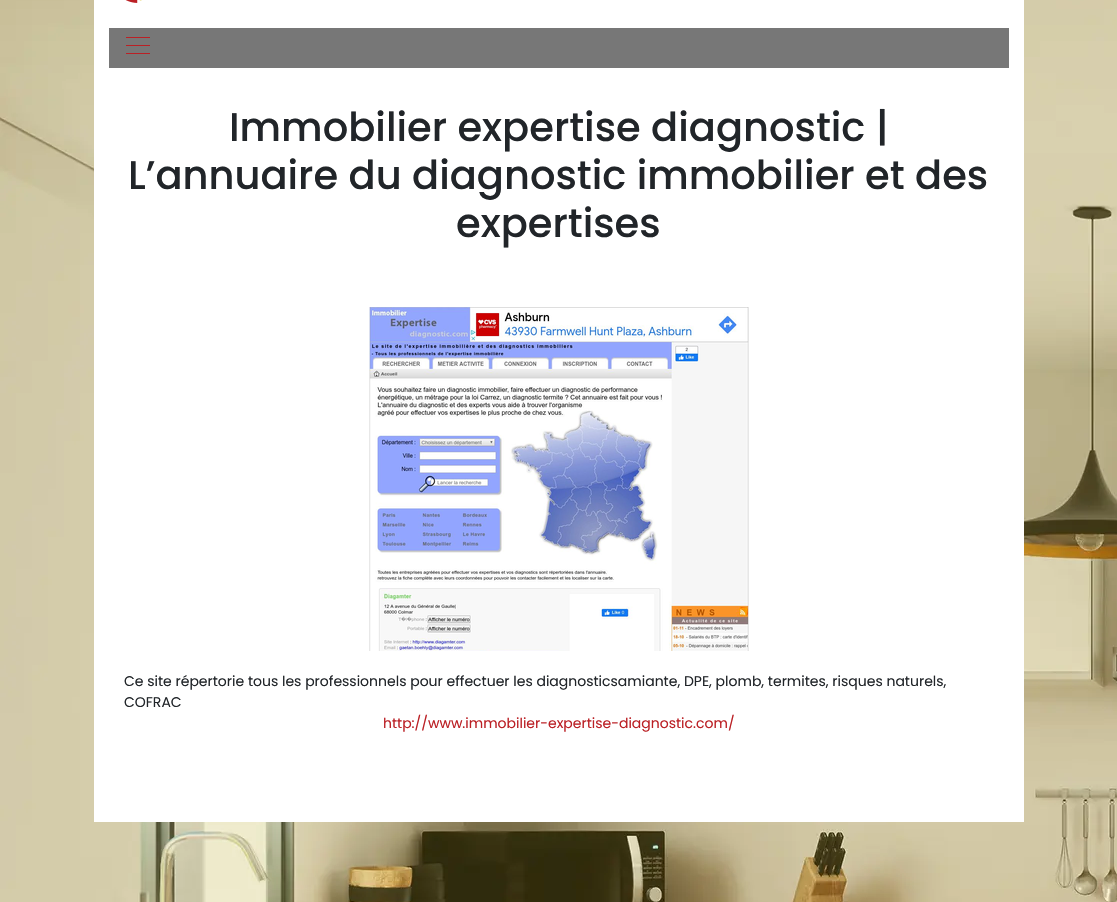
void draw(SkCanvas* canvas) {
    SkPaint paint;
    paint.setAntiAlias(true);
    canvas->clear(0xFFFFFFFF);
    canvas->drawImageRect(SkImages::DeferredFromEncodedData(SkData::MakeFromFileName("img1.png")), SkRect::MakeXYWH(0, 0, 1117, 902), SkSamplingOptions());
    paint.setColor(0xFFFFFFFF);
    canvas->drawRect(SkRect::MakeXYWH(94, 0, 930, 822), paint);
    canvas->drawImageRect(SkImages::DeferredFromEncodedData(SkData::MakeFromFileName("img2.png")), SkRect::MakeXYWH(125, 0, 17, 3), SkSamplingOptions());
    paint.setColor(0xFF777777);
    canvas->drawRect(SkRect::MakeXYWH(109, 28, 900, 40), paint);
    paint.setColor(0xFFBB2025);
    canvas->drawRect(SkRect::MakeXYWH(126, 37, 24, 1), paint);
    canvas->drawRect(SkRect::MakeXYWH(126, 45, 24, 1), paint);
    canvas->drawRect(SkRect::MakeXYWH(126, 53, 24, 1), paint);
    SkFont font1(fontMgr->matchFamilyStyle("Poppins", SkFontStyle(500, SkFontStyle::kNormal_Width, SkFontStyle::kUpright_Slant)), 40);
    font1.setSubpixel(true);
    paint.setColor(0xFF212529);
    canvas->drawString("Immobilier expertise diagnostic |", 229, 141, font1, paint);
    canvas->drawString("L’annuaire du diagnostic immobilier et des", 128, 189, font1, paint);
    canvas->drawString("expertises", 456, 237, font1, paint);
    canvas->drawImageRect(SkImages::DeferredFromEncodedData(SkData::MakeFromFileName("img3.png")), SkRect::MakeXYWH(369, 307, 380, 344), SkSamplingOptions());
    SkFont font2(fontMgr->matchFamilyStyle("Poppins", SkFontStyle::Normal()), 14);
    font2.setSubpixel(true);
    canvas->drawString("Ce site répertorie tous les professionnels pour effectuer les diagnosticsamiante, DPE, plomb, termites, risques naturels,", 124, 686, font2, paint);
    canvas->drawString("COFRAC", 124, 707, font2, paint);
    paint.setColor(0xFFBB2025);
    canvas->drawString("http://www.immobilier-expertise-diagnostic.com/", 383, 728, font2, paint);
}
